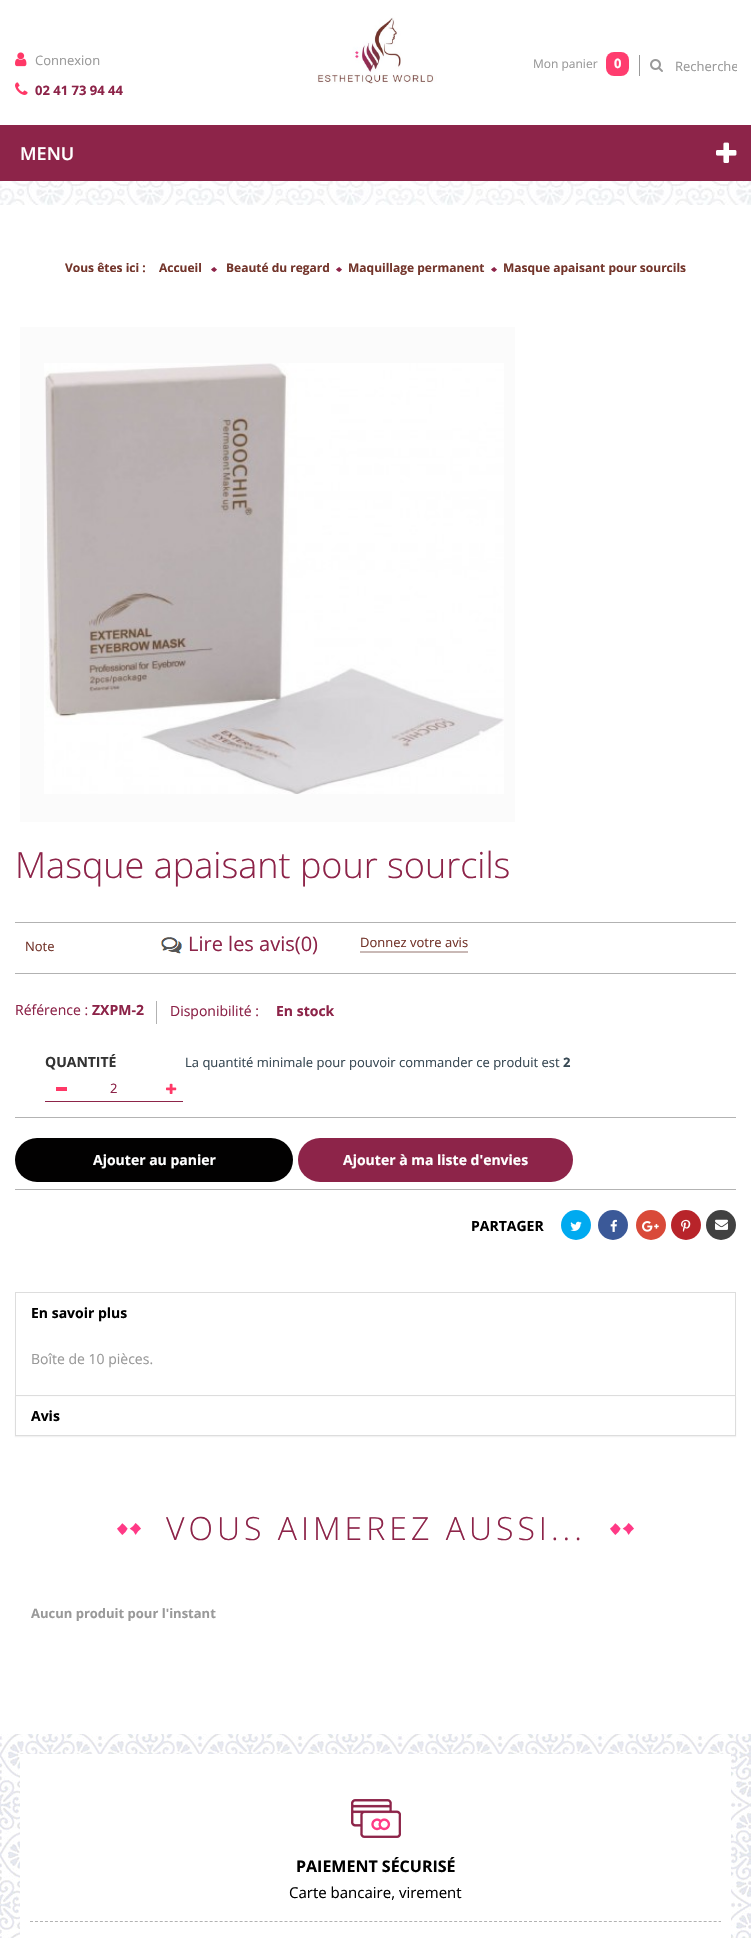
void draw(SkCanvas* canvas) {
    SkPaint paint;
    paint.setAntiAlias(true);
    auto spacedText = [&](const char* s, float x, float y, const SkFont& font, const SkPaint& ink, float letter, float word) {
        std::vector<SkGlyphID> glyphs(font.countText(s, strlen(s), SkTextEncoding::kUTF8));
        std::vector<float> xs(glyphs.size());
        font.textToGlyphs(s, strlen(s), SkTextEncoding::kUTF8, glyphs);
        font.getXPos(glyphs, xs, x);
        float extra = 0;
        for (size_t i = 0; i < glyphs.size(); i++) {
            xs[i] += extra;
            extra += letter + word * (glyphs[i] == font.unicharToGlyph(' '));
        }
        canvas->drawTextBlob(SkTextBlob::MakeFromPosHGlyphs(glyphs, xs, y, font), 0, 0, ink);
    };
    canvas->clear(0xFFFFFFFF);
    canvas->drawImageRect(SkImages::DeferredFromEncodedData(SkData::MakeFromFileName("img1.png")), SkRect::MakeXYWH(15, 52, 12, 15), SkSamplingOptions());
    SkFont font1(fontMgr->matchFamilyStyle("Open Sans", SkFontStyle::Normal()), 13);
    font1.setSubpixel(true);
    paint.setColor(0xFF999999);
    canvas->drawString("Connexion", 35, 65, font1, paint);
    canvas->drawImageRect(SkImages::DeferredFromEncodedData(SkData::MakeFromFileName("img2.png")), SkRect::MakeXYWH(15, 82, 13, 13), SkSamplingOptions());
    SkFont font2(fontMgr->matchFamilyStyle("Open Sans", SkFontStyle::Bold()), 13);
    font2.setSubpixel(true);
    paint.setColor(0xFF8D2449);
    canvas->drawString("02 41 73 94 44", 35, 95, font2, paint);
    canvas->drawImageRect(SkImages::DeferredFromEncodedData(SkData::MakeFromFileName("img3.png")), SkRect::MakeXYWH(317, 17, 120, 67), SkSamplingOptions());
    SkFont font3(fontMgr->matchFamilyStyle("Open Sans", SkFontStyle::Normal()), 12);
    font3.setSubpixel(true);
    paint.setColor(0xFF999999);
    canvas->drawString("Mon panier", 533, 68, font3, paint);
    paint.setColor(0xFFFF3D6F);
    canvas->drawRoundRect(SkRect::MakeXYWH(606, 52, 23, 24), 8, 8, paint);
    paint.setColor(0xFFFFFFFF);
    canvas->drawString("0", 614, 68, font2, paint);
    paint.setColor(0xFF999999);
    canvas->drawRect(SkRect::MakeXYWH(639, 55, 1, 21), paint);
    canvas->drawImageRect(SkImages::DeferredFromEncodedData(SkData::MakeFromFileName("img4.png")), SkRect::MakeXYWH(650, 59, 13, 13), SkSamplingOptions());
    canvas->save();
    canvas->clipRect(SkRect::MakeXYWH(675, 57, 62, 18));
    canvas->drawString("Recherche", 675, 71, font1, paint);
    canvas->restore();
    paint.setColor(0xFF8D2449);
    canvas->drawRect(SkRect::MakeXYWH(0, 125, 751, 56), paint);
    SkFont font4(fontMgr->matchFamilyStyle("Open Sans", SkFontStyle(600, SkFontStyle::kNormal_Width, SkFontStyle::kUpright_Slant)), 18);
    font4.setSubpixel(true);
    paint.setColor(0xFFFFFFFF);
    canvas->drawString("MENU", 20, 160, font4, paint);
    canvas->drawImageRect(SkImages::DeferredFromEncodedData(SkData::MakeFromFileName("img5.png")), SkRect::MakeXYWH(716, 142, 21, 21), SkSamplingOptions());
    canvas->drawImageRect(SkImages::DeferredFromEncodedData(SkData::MakeFromFileName("img6.png")), SkRect::MakeXYWH(0, 181, 751, 24), SkSamplingOptions());
    SkFont font5(fontMgr->matchFamilyStyle("Open Sans", SkFontStyle::Bold()), 12);
    font5.setSubpixel(true);
    paint.setColor(0xFF73352B);
    canvas->drawString("Vous êtes ici :", 65, 272, font5, paint);
    canvas->drawString("Accueil", 159, 272, font5, paint);
    canvas->drawImageRect(SkImages::DeferredFromEncodedData(SkData::MakeFromFileName("img7.png")), SkRect::MakeXYWH(211, 267, 6, 5), SkSamplingOptions());
    canvas->drawString("Beauté du regard", 226, 272, font5, paint);
    canvas->drawImageRect(SkImages::DeferredFromEncodedData(SkData::MakeFromFileName("img7.png")), SkRect::MakeXYWH(336, 267, 6, 5), SkSamplingOptions());
    canvas->drawString("Maquillage permanent", 348, 272, font5, paint);
    canvas->drawImageRect(SkImages::DeferredFromEncodedData(SkData::MakeFromFileName("img7.png")), SkRect::MakeXYWH(491, 267, 6, 5), SkSamplingOptions());
    canvas->drawString("Masque apaisant pour sourcils", 503, 272, font5, paint);
    paint.setColor(0xFFFBFBFB);
    canvas->drawRect(SkRect::MakeXYWH(20, 327, 495, 495), paint);
    canvas->drawImageRect(SkImages::DeferredFromEncodedData(SkData::MakeFromFileName("img8.png")), SkRect::MakeXYWH(44, 363, 460, 431), SkSamplingOptions());
    SkFont font6(fontMgr->matchFamilyStyle("Open Sans", SkFontStyle(300, SkFontStyle::kNormal_Width, SkFontStyle::kUpright_Slant)), 36);
    font6.setSubpixel(true);
    paint.setColor(0xFF8D2449);
    canvas->drawString("Masque apaisant pour sourcils", 15, 878, font6, paint);
    paint.setColor(0xFFB2B2B2);
    canvas->drawRect(SkRect::MakeXYWH(15, 922, 721, 1), paint);
    canvas->drawRect(SkRect::MakeXYWH(15, 973, 721, 1), paint);
    paint.setColor(0xFF73352B);
    canvas->drawString("Note", 25, 951, font1, paint);
    canvas->drawImageRect(SkImages::DeferredFromEncodedData(SkData::MakeFromFileName("img9.png")), SkRect::MakeXYWH(161, 937, 21, 17), SkSamplingOptions());
    SkFont font7(fontMgr->matchFamilyStyle("Open Sans", SkFontStyle::Normal()), 20);
    font7.setSubpixel(true);
    paint.setColor(0xFF8D2449);
    canvas->drawString("Lire les avis(0)", 188, 951, font7, paint);
    paint.setColor(0xFF73352B);
    canvas->drawString("Donnez votre avis", 360, 947, font1, paint);
    paint.setColor(0xFFC9B9B6);
    canvas->drawRect(SkRect::MakeXYWH(360, 951, 108, 2), paint);
    paint.setColor(0xFFB2B2B2);
    canvas->drawRect(SkRect::MakeXYWH(156, 1001, 1, 23), paint);
    SkFont font8(fontMgr->matchFamilyStyle("Open Sans", SkFontStyle::Normal()), 14);
    font8.setSubpixel(true);
    paint.setColor(0xFF8D2449);
    canvas->drawString("Référence :", 15, 1015, font8, paint);
    SkFont font9(fontMgr->matchFamilyStyle("Open Sans", SkFontStyle::Bold()), 14);
    font9.setSubpixel(true);
    canvas->drawString("ZXPM-2", 92, 1015, font9, paint);
    canvas->drawString("Disponibilité :", 170, 1016, font8, paint);
    canvas->drawString("En stock", 276, 1016, font9, paint);
    paint.setColor(0xFF333333);
    canvas->drawString("QUANTITÉ", 45, 1067, font9, paint);
    paint.setColor(0xFFFF3867);
    canvas->drawRect(SkRect::MakeXYWH(56, 1087, 11, 4), paint);
    paint.setColor(0xFF8D2449);
    canvas->drawString("2", 110, 1093, font1, paint);
    canvas->drawImageRect(SkImages::DeferredFromEncodedData(SkData::MakeFromFileName("img10.png")), SkRect::MakeXYWH(166, 1083, 11, 11), SkSamplingOptions());
    canvas->drawRect(SkRect::MakeXYWH(45, 1101, 138, 1), paint);
    paint.setColor(0xFF374853);
    canvas->drawString("La quantité minimale pour pouvoir commander ce produit est", 185, 1067, font1, paint);
    canvas->drawString("2", 563, 1067, font2, paint);
    paint.setColor(0xFFB3B3B3);
    canvas->drawRect(SkRect::MakeXYWH(15, 1117, 721, 1), paint);
    canvas->drawRect(SkRect::MakeXYWH(15, 1189, 721, 1), paint);
    paint.setColor(0xFF020101);
    canvas->drawRoundRect(SkRect::MakeXYWH(15, 1138, 278, 44), 22, 22, paint);
    paint.setColor(0xFFFFFFFF);
    canvas->drawString("Ajouter au panier", 93, 1165, font9, paint);
    paint.setColor(0xFF8D2449);
    canvas->drawRoundRect(SkRect::MakeXYWH(298, 1138, 275, 44), 22, 22, paint);
    paint.setColor(0xFFFFFFFF);
    canvas->drawString("Ajouter à ma liste d'envies", 343, 1165, font9, paint);
    paint.setColor(0xFF000000);
    canvas->drawString("PARTAGER", 471, 1231, font9, paint);
    paint.setColor(0xFF00AAF0);
    canvas->drawCircle(576, 1225, 15, paint);
    canvas->drawImageRect(SkImages::DeferredFromEncodedData(SkData::MakeFromFileName("img11.png")), SkRect::MakeXYWH(570, 1221, 12, 10), SkSamplingOptions());
    paint.setColor(0xFF3B5998);
    canvas->drawCircle(613, 1225, 15, paint);
    canvas->drawImageRect(SkImages::DeferredFromEncodedData(SkData::MakeFromFileName("img12.png")), SkRect::MakeXYWH(610, 1219, 7, 13), SkSamplingOptions());
    paint.setColor(0xFFD94A39);
    canvas->drawCircle(651, 1225, 15, paint);
    canvas->drawImageRect(SkImages::DeferredFromEncodedData(SkData::MakeFromFileName("img13.png")), SkRect::MakeXYWH(642, 1221, 17, 11), SkSamplingOptions());
    paint.setColor(0xFFB8242A);
    canvas->drawCircle(686, 1225, 15, paint);
    canvas->drawImageRect(SkImages::DeferredFromEncodedData(SkData::MakeFromFileName("img14.png")), SkRect::MakeXYWH(681, 1219, 10, 13), SkSamplingOptions());
    paint.setColor(0xFF414141);
    canvas->drawCircle(721, 1225, 15, paint);
    canvas->drawImageRect(SkImages::DeferredFromEncodedData(SkData::MakeFromFileName("img15.png")), SkRect::MakeXYWH(715, 1219, 13, 11), SkSamplingOptions());
    paint.setStyle(SkPaint::kStroke_Style);
    paint.setStrokeWidth(1);
    paint.setColor(0xFFDDDDDD);
    canvas->drawRect(SkRect::MakeXYWH(15.5f, 1292.5f, 720, 103), paint);
    paint.setStyle(SkPaint::kFill_Style);
    paint.setColor(0xFF000000);
    canvas->drawString("En savoir plus", 31, 1318, font9, paint);
    paint.setColor(0xFF999999);
    canvas->drawString("Boîte de 10 pièces.", 31, 1364, font8, paint);
    paint.setColor(0x0D000000);
    paint.setMaskFilter(SkMaskFilter::MakeBlur(kNormal_SkBlurStyle, 0.5f));
    canvas->drawRect(SkRect::MakeXYWH(15, 1397, 721, 40), paint);
    paint.setMaskFilter(nullptr);
    paint.setColor(0xFFFFFFFF);
    canvas->drawRect(SkRect::MakeXYWH(16, 1397, 719, 38), paint);
    paint.setColor(0xFFDDDDDD);
    canvas->drawRect(SkRect::MakeXYWH(735, 1396, 1, 40), paint);
    canvas->drawRect(SkRect::MakeXYWH(15, 1435, 721, 1), paint);
    canvas->drawRect(SkRect::MakeXYWH(15, 1396, 1, 40), paint);
    paint.setColor(0xFF000000);
    canvas->drawString("Avis", 31, 1421, font9, paint);
    canvas->drawImageRect(SkImages::DeferredFromEncodedData(SkData::MakeFromFileName("img16.png")), SkRect::MakeXYWH(117, 1523, 24, 12), SkSamplingOptions());
    SkFont font10(fontMgr->matchFamilyStyle("Open Sans", SkFontStyle(300, SkFontStyle::kNormal_Width, SkFontStyle::kUpright_Slant)), 32);
    font10.setSubpixel(true);
    paint.setColor(0xFF8D2449);
    spacedText("VOUS AIMEREZ AUSSI...", 166, 1540, font10, paint, 4, 0);
    canvas->drawImageRect(SkImages::DeferredFromEncodedData(SkData::MakeFromFileName("img16.png")), SkRect::MakeXYWH(610, 1523, 24, 12), SkSamplingOptions());
    paint.setColor(0xFF999999);
    canvas->drawString("Aucun produit pour l'instant", 31, 1618, font2, paint);
    canvas->drawImageRect(SkImages::DeferredFromEncodedData(SkData::MakeFromFileName("img17.png")), SkRect::MakeXYWH(0, 1734, 751, 204), SkSamplingOptions());
    paint.setColor(0xFFFFFFFF);
    canvas->drawRect(SkRect::MakeXYWH(20, 1754, 711, 184), paint);
    paint.setStyle(SkPaint::kStroke_Style);
    paint.setColor(0xFFB2B2B2);
    paint.setPathEffect(SkDashPathEffect::Make({{3, 1.99f}}, 0));
    canvas->drawPath(SkPathBuilder().moveTo(30, 1921.5f).lineTo(721, 1921.5f).detach(), paint);
    paint.setPathEffect(nullptr);
    canvas->drawImageRect(SkImages::DeferredFromEncodedData(SkData::MakeFromFileName("img18.png")), SkRect::MakeXYWH(351, 1799, 50, 39), SkSamplingOptions());
    SkFont font11(fontMgr->matchFamilyStyle("Open Sans", SkFontStyle::Bold()), 16);
    font11.setSubpixel(true);
    paint.setStyle(SkPaint::kFill_Style);
    paint.setColor(0xFF000000);
    canvas->drawString("PAIEMENT SÉCURISÉ", 296, 1872, font11, paint);
    SkFont font12(fontMgr->matchFamilyStyle("Open Sans", SkFontStyle::Normal()), 15);
    font12.setSubpixel(true);
    canvas->drawString("Carte bancaire, virement", 289, 1898, font12, paint);
}
